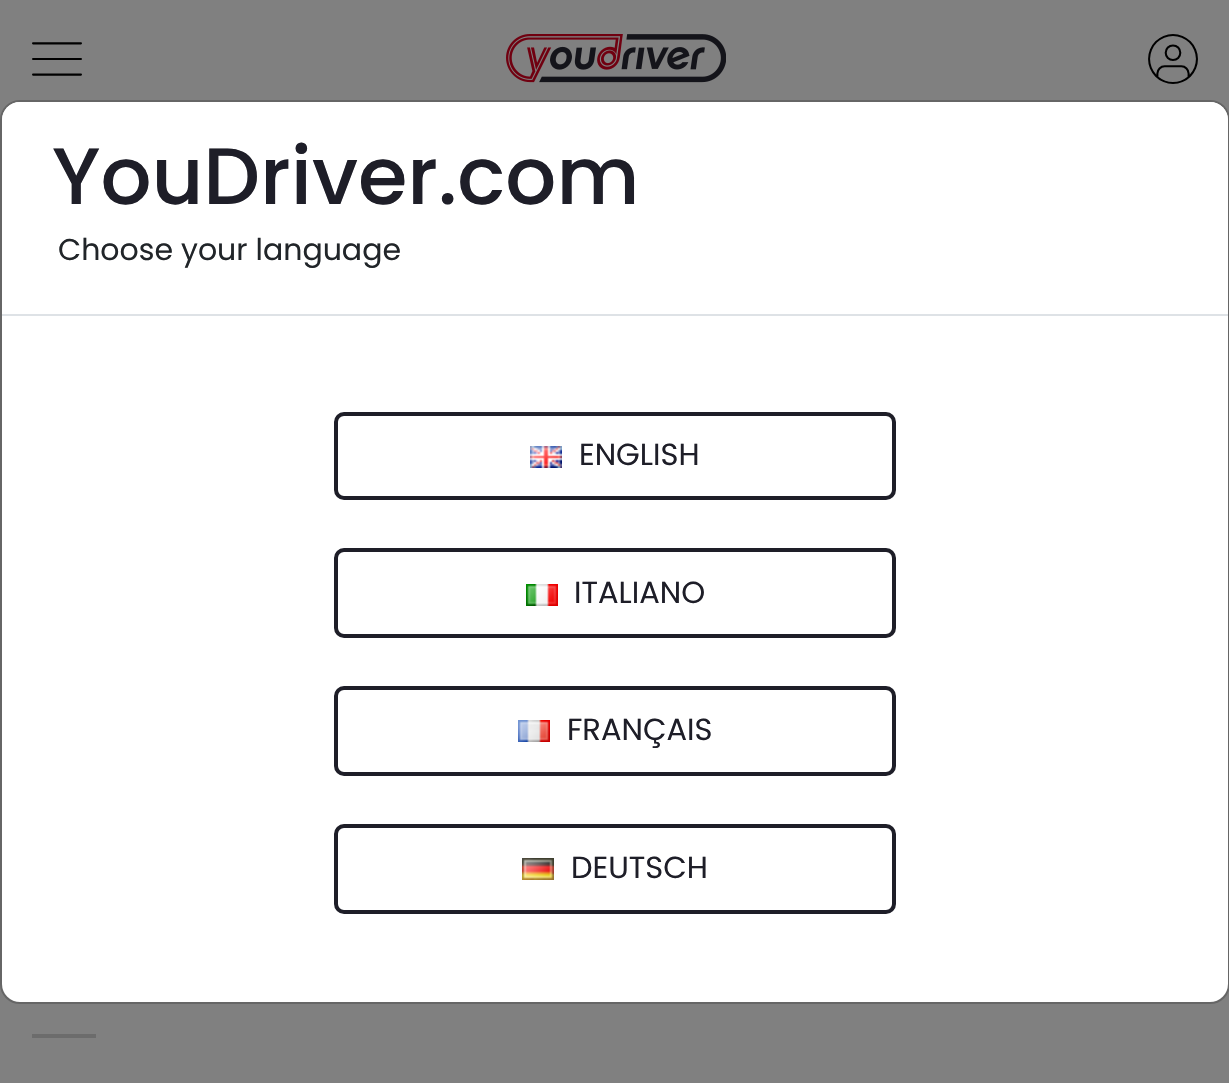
void draw(SkCanvas* canvas) {
    SkPaint paint;
    paint.setAntiAlias(true);
    canvas->clear(0xFF808080);
    canvas->drawImageRect(SkImages::DeferredFromEncodedData(SkData::MakeFromFileName("img1.png")), SkRect::MakeXYWH(32, 42, 50, 34), SkSamplingOptions());
    canvas->drawImageRect(SkImages::DeferredFromEncodedData(SkData::MakeFromFileName("img2.png")), SkRect::MakeXYWH(506, 34, 220, 49), SkSamplingOptions());
    canvas->drawImageRect(SkImages::DeferredFromEncodedData(SkData::MakeFromFileName("img3.png")), SkRect::MakeXYWH(1148, 34, 50, 50), SkSamplingOptions());
    paint.setColor(0xFFFFFFFF);
    canvas->drawRoundRect(SkRect::MakeXYWH(2, 102, 1226, 900), 18, 18, paint);
    paint.setStyle(SkPaint::kStroke_Style);
    paint.setStrokeWidth(2);
    paint.setColor(0x33000000);
    canvas->drawRoundRect(SkRect::MakeXYWH(1, 101, 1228, 902), 19, 19, paint);
    paint.setStyle(SkPaint::kFill_Style);
    paint.setColor(0xFFFFFFFF);
    canvas->drawPath(SkPathBuilder().moveTo(20, 102).lineTo(1210, 102).cubicTo(1220, 102, 1228, 110, 1228, 120).lineTo(1228, 316).lineTo(2, 316).lineTo(2, 120).cubicTo(2, 110, 10, 102, 20, 102).close().detach(), paint);
    paint.setColor(0xFFDEE2E6);
    canvas->drawRect(SkRect::MakeXYWH(2, 314, 1226, 2), paint);
    SkFont font1(fontMgr->matchFamilyStyle("Poppins", SkFontStyle(500, SkFontStyle::kNormal_Width, SkFontStyle::kUpright_Slant)), 80);
    font1.setSubpixel(true);
    paint.setColor(0xFF1E1E28);
    canvas->drawString("YouDriver.com", 52, 204, font1, paint);
    SkFont font2(fontMgr->matchFamilyStyle("Poppins", SkFontStyle::Normal()), 30);
    font2.setSubpixel(true);
    paint.setColor(0xFF212529);
    canvas->drawString("Choose your language", 58, 260, font2, paint);
    paint.setStyle(SkPaint::kStroke_Style);
    paint.setStrokeWidth(4);
    paint.setColor(0xFF1E1E28);
    canvas->drawRoundRect(SkRect::MakeXYWH(336, 414, 558, 84), 8, 8, paint);
    canvas->drawImageRect(SkImages::DeferredFromEncodedData(SkData::MakeFromFileName("img4.png")), SkRect::MakeXYWH(530, 446, 32, 22), SkSamplingOptions());
    SkFont font3(fontMgr->matchFamilyStyle("Poppins", SkFontStyle::Normal()), 30.5f);
    font3.setSubpixel(true);
    paint.setStyle(SkPaint::kFill_Style);
    canvas->drawString("ENGLISH", 579, 465, font3, paint);
    paint.setStyle(SkPaint::kStroke_Style);
    canvas->drawRoundRect(SkRect::MakeXYWH(336, 550, 558, 86), 8, 8, paint);
    canvas->drawImageRect(SkImages::DeferredFromEncodedData(SkData::MakeFromFileName("img5.png")), SkRect::MakeXYWH(526, 584, 32, 22), SkSamplingOptions());
    paint.setStyle(SkPaint::kFill_Style);
    canvas->drawString("ITALIANO", 574, 603, font3, paint);
    paint.setStyle(SkPaint::kStroke_Style);
    canvas->drawRoundRect(SkRect::MakeXYWH(336, 688, 558, 86), 8, 8, paint);
    canvas->drawImageRect(SkImages::DeferredFromEncodedData(SkData::MakeFromFileName("img6.png")), SkRect::MakeXYWH(518, 720, 32, 22), SkSamplingOptions());
    paint.setStyle(SkPaint::kFill_Style);
    canvas->drawString("FRANÇAIS", 567, 740, font3, paint);
    paint.setStyle(SkPaint::kStroke_Style);
    canvas->drawRoundRect(SkRect::MakeXYWH(336, 826, 558, 86), 8, 8, paint);
    canvas->drawImageRect(SkImages::DeferredFromEncodedData(SkData::MakeFromFileName("img7.png")), SkRect::MakeXYWH(522, 858, 32, 22), SkSamplingOptions());
    paint.setStyle(SkPaint::kFill_Style);
    canvas->drawString("DEUTSCH", 571, 878, font3, paint);
    paint.setColor(0xFF6C6C6C);
    canvas->drawRect(SkRect::MakeXYWH(32, 1034, 64, 4), paint);
}
